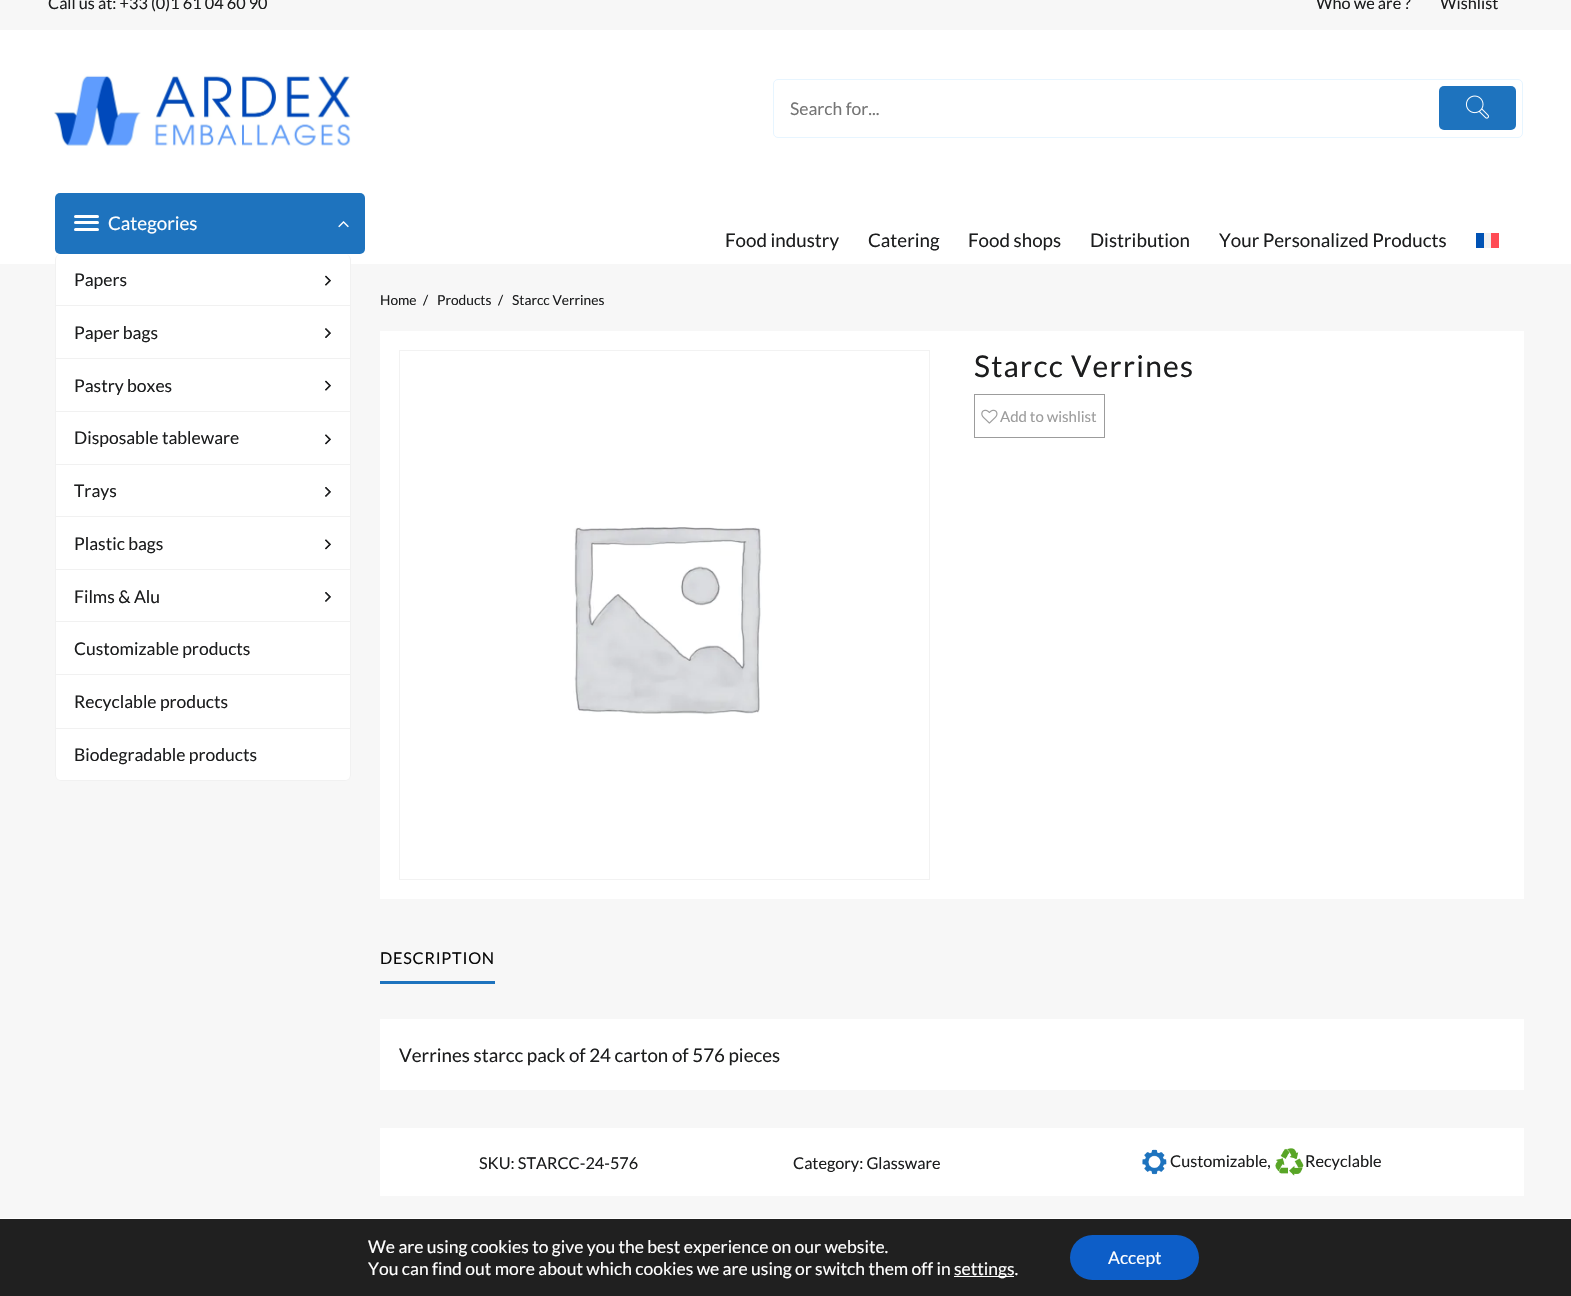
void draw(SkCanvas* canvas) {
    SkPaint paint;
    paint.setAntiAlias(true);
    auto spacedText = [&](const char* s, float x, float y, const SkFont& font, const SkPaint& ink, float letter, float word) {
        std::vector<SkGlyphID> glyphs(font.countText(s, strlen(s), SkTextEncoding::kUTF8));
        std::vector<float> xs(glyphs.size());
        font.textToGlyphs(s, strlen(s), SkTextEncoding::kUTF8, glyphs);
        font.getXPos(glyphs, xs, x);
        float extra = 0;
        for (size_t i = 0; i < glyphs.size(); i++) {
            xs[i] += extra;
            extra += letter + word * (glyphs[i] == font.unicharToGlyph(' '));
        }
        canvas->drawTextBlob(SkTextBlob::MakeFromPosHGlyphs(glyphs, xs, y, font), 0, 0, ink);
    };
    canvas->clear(0xFFF7F7F7);
    paint.setColor(0xFFFFFFFF);
    canvas->drawRect(SkRect::MakeXYWH(0, 30, 1571, 234), paint);
    SkFont font1(fontMgr->matchFamilyStyle("Lato", SkFontStyle::Normal()), 16.25f);
    font1.setSubpixel(true);
    paint.setColor(0xFF1C1D1E);
    canvas->drawString("Call us at: +33 (0)1 61 04 60 90", 48, 9, font1, paint);
    canvas->drawString("Who we are ?", 1316, 9, font1, paint);
    canvas->drawString("Wishlist", 1440, 9, font1, paint);
    canvas->drawImageRect(SkImages::DeferredFromEncodedData(SkData::MakeFromFileName("img1.png")), SkRect::MakeXYWH(54, 75, 297, 71), SkSamplingOptions());
    paint.setStyle(SkPaint::kStroke_Style);
    paint.setStrokeWidth(1);
    paint.setColor(0xFFE7F5FF);
    canvas->drawRoundRect(SkRect::MakeXYWH(773.5f, 79.5f, 749, 58), 4.5f, 4.5f, paint);
    SkFont font2(fontMgr->matchFamilyStyle("Lato", SkFontStyle::Normal()), 17.5f);
    font2.setSubpixel(true);
    paint.setStyle(SkPaint::kFill_Style);
    paint.setColor(0xFF757575);
    canvas->drawString("Search for...", 790, 115, font2, paint);
    paint.setColor(0xFF1E73BE);
    canvas->drawRoundRect(SkRect::MakeXYWH(1439, 86, 77, 44), 5, 5, paint);
    canvas->drawImageRect(SkImages::DeferredFromEncodedData(SkData::MakeFromFileName("img2.png")), SkRect::MakeXYWH(1465, 95, 24, 24), SkSamplingOptions());
    canvas->drawRoundRect(SkRect::MakeXYWH(55, 193, 310, 61), 5, 5, paint);
    paint.setColor(0xFFFFFFFF);
    canvas->drawRoundRect(SkRect::MakeXYWH(74, 215, 25, 3), 1.5f, 1.5f, paint);
    canvas->drawRoundRect(SkRect::MakeXYWH(74, 221, 25, 3), 1.5f, 1.5f, paint);
    canvas->drawRoundRect(SkRect::MakeXYWH(74, 228, 25, 3), 1.5f, 1.5f, paint);
    SkFont font3(fontMgr->matchFamilyStyle("Lato", SkFontStyle::Normal()), 18.75f);
    font3.setSubpixel(true);
    canvas->drawString("Categories", 108, 230, font3, paint);
    canvas->drawImageRect(SkImages::DeferredFromEncodedData(SkData::MakeFromFileName("img3.png")), SkRect::MakeXYWH(338, 221, 11, 7), SkSamplingOptions());
    canvas->drawRoundRect(SkRect::MakeXYWH(55, 254, 296, 527), 6, 6, paint);
    paint.setColor(0xFFF1F1F1);
    canvas->drawPath(SkPathBuilder(SkPathFillType::kEvenOdd).moveTo(61, 254).lineTo(345, 254).cubicTo(348, 254, 351, 257, 351, 260).lineTo(351, 775).cubicTo(351, 778, 348, 781, 345, 781).lineTo(61, 781).cubicTo(58, 781, 55, 778, 55, 775).lineTo(55, 260).cubicTo(55, 257, 58, 254, 61, 254).close().moveTo(61, 254).lineTo(345, 254).cubicTo(348, 254, 350, 257, 350, 260).lineTo(350, 775).cubicTo(350, 778, 348, 780, 345, 780).lineTo(61, 780).cubicTo(58, 780, 56, 778, 56, 775).lineTo(56, 260).cubicTo(56, 257, 58, 254, 61, 254).close().detach(), paint);
    canvas->drawRect(SkRect::MakeXYWH(56, 305, 294, 1), paint);
    paint.setColor(0xFF1C1D1E);
    canvas->drawString("Papers", 74, 286, font2, paint);
    canvas->drawImageRect(SkImages::DeferredFromEncodedData(SkData::MakeFromFileName("img4.png")), SkRect::MakeXYWH(325, 275, 6, 11), SkSamplingOptions());
    canvas->drawImageRect(SkImages::DeferredFromEncodedData(SkData::MakeFromFileName("img5.png")), SkRect::MakeXYWH(325, 275, 6, 11), SkSamplingOptions());
    paint.setColor(0xFFF1F1F1);
    canvas->drawRect(SkRect::MakeXYWH(56, 358, 294, 1), paint);
    paint.setColor(0xFF1C1D1E);
    canvas->drawString("Paper bags", 74, 339, font2, paint);
    canvas->drawImageRect(SkImages::DeferredFromEncodedData(SkData::MakeFromFileName("img6.png")), SkRect::MakeXYWH(325, 328, 6, 10), SkSamplingOptions());
    canvas->drawImageRect(SkImages::DeferredFromEncodedData(SkData::MakeFromFileName("img7.png")), SkRect::MakeXYWH(325, 328, 6, 10), SkSamplingOptions());
    paint.setColor(0xFFF1F1F1);
    canvas->drawRect(SkRect::MakeXYWH(56, 411, 294, 1), paint);
    paint.setColor(0xFF1C1D1E);
    canvas->drawString("Pastry boxes", 74, 392, font2, paint);
    canvas->drawImageRect(SkImages::DeferredFromEncodedData(SkData::MakeFromFileName("img4.png")), SkRect::MakeXYWH(325, 380, 6, 11), SkSamplingOptions());
    canvas->drawImageRect(SkImages::DeferredFromEncodedData(SkData::MakeFromFileName("img5.png")), SkRect::MakeXYWH(325, 380, 6, 11), SkSamplingOptions());
    paint.setColor(0xFFF1F1F1);
    canvas->drawRect(SkRect::MakeXYWH(56, 464, 294, 1), paint);
    paint.setColor(0xFF1C1D1E);
    canvas->drawString("Disposable tableware", 74, 444, font2, paint);
    canvas->drawImageRect(SkImages::DeferredFromEncodedData(SkData::MakeFromFileName("img8.png")), SkRect::MakeXYWH(325, 434, 6, 11), SkSamplingOptions());
    canvas->drawImageRect(SkImages::DeferredFromEncodedData(SkData::MakeFromFileName("img9.png")), SkRect::MakeXYWH(325, 434, 6, 11), SkSamplingOptions());
    paint.setColor(0xFFF1F1F1);
    canvas->drawRect(SkRect::MakeXYWH(56, 516, 294, 1), paint);
    paint.setColor(0xFF1C1D1E);
    canvas->drawString("Trays", 74, 497, font2, paint);
    canvas->drawImageRect(SkImages::DeferredFromEncodedData(SkData::MakeFromFileName("img10.png")), SkRect::MakeXYWH(325, 487, 6, 10), SkSamplingOptions());
    canvas->drawImageRect(SkImages::DeferredFromEncodedData(SkData::MakeFromFileName("img11.png")), SkRect::MakeXYWH(325, 487, 6, 10), SkSamplingOptions());
    paint.setColor(0xFFF1F1F1);
    canvas->drawRect(SkRect::MakeXYWH(56, 569, 294, 1), paint);
    paint.setColor(0xFF1C1D1E);
    canvas->drawString("Plastic bags", 74, 550, font2, paint);
    canvas->drawImageRect(SkImages::DeferredFromEncodedData(SkData::MakeFromFileName("img8.png")), SkRect::MakeXYWH(325, 539, 6, 11), SkSamplingOptions());
    canvas->drawImageRect(SkImages::DeferredFromEncodedData(SkData::MakeFromFileName("img9.png")), SkRect::MakeXYWH(325, 539, 6, 11), SkSamplingOptions());
    paint.setColor(0xFFF1F1F1);
    canvas->drawRect(SkRect::MakeXYWH(56, 621, 294, 1), paint);
    paint.setColor(0xFF1C1D1E);
    canvas->drawString("Films & Alu", 74, 603, font2, paint);
    canvas->drawImageRect(SkImages::DeferredFromEncodedData(SkData::MakeFromFileName("img10.png")), SkRect::MakeXYWH(325, 592, 6, 10), SkSamplingOptions());
    canvas->drawImageRect(SkImages::DeferredFromEncodedData(SkData::MakeFromFileName("img11.png")), SkRect::MakeXYWH(325, 592, 6, 10), SkSamplingOptions());
    paint.setColor(0xFFF1F1F1);
    canvas->drawRect(SkRect::MakeXYWH(56, 674, 294, 1), paint);
    paint.setColor(0xFF1C1D1E);
    canvas->drawString("Customizable products", 74, 655, font2, paint);
    paint.setColor(0xFFF1F1F1);
    canvas->drawRect(SkRect::MakeXYWH(56, 728, 294, 1), paint);
    paint.setColor(0xFF1C1D1E);
    canvas->drawString("Recyclable products", 74, 708, font2, paint);
    canvas->drawString("Biodegradable products", 74, 761, font2, paint);
    canvas->drawString("Food industry", 725, 247, font3, paint);
    canvas->drawString("Catering", 868, 247, font3, paint);
    canvas->drawString("Food shops", 968, 247, font3, paint);
    canvas->drawString("Distribution", 1090, 247, font3, paint);
    canvas->drawString("Your Personalized Products", 1219, 247, font3, paint);
    paint.setColor(0xFF0052B4);
    canvas->drawRect(SkRect::MakeXYWH(1476, 233, 8, 15), paint);
    paint.setColor(0xFFF0F0F0);
    canvas->drawRect(SkRect::MakeXYWH(1484, 233, 7, 15), paint);
    paint.setColor(0xFFFF4B55);
    canvas->drawRect(SkRect::MakeXYWH(1491, 233, 8, 15), paint);
    SkFont font4(fontMgr->matchFamilyStyle("Lato", SkFontStyle::Normal()), 13.75f);
    font4.setSubpixel(true);
    paint.setColor(0xFF1C1D1E);
    canvas->drawString("Home", 380, 305, font4, paint);
    canvas->drawString("/", 423, 305, font4, paint);
    canvas->drawString("Products", 437, 305, font4, paint);
    canvas->drawString("/", 498, 305, font4, paint);
    canvas->drawString("Starcc Verrines", 512, 305, font4, paint);
    paint.setColor(0xFFFFFFFF);
    canvas->drawRect(SkRect::MakeXYWH(380, 331, 1144, 568), paint);
    paint.setStyle(SkPaint::kStroke_Style);
    paint.setColor(0xFFF2F2F2);
    canvas->drawRect(SkRect::MakeXYWH(399.5f, 350.5f, 530, 529), paint);
    canvas->drawImageRect(SkImages::DeferredFromEncodedData(SkData::MakeFromFileName("img12.png")), SkRect::MakeXYWH(573, 527, 189, 188), SkSamplingOptions());
    SkFont font5(fontMgr->matchFamilyStyle("Lato", SkFontStyle::Normal()), 30);
    font5.setSubpixel(true);
    paint.setStyle(SkPaint::kFill_Style);
    paint.setColor(0xFF1C1D1E);
    spacedText("Starcc Verrines", 974, 377, font5, paint, 1.25f, 0);
    paint.setStyle(SkPaint::kStroke_Style);
    paint.setColor(0xFF9C9C9C);
    canvas->drawRect(SkRect::MakeXYWH(974.5f, 394.5f, 130, 43), paint);
    canvas->drawImageRect(SkImages::DeferredFromEncodedData(SkData::MakeFromFileName("img13.png")), SkRect::MakeXYWH(981, 409, 17, 15), SkSamplingOptions());
    SkFont font6(fontMgr->matchFamilyStyle("Lato", SkFontStyle::Normal()), 15);
    font6.setSubpixel(true);
    paint.setStyle(SkPaint::kFill_Style);
    canvas->drawString("Add to wishlist", 1000, 422, font6, paint);
    paint.setColor(0xFF090909);
    spacedText("DESCRIPTION", 380, 964, font1, paint, 0.75f, 0);
    paint.setColor(0xFF1E73BE);
    canvas->drawRect(SkRect::MakeXYWH(380, 981, 115, 3), paint);
    paint.setColor(0xFFFFFFFF);
    canvas->drawRect(SkRect::MakeXYWH(380, 1019, 1144, 71), paint);
    paint.setColor(0xFF1C1D1E);
    canvas->drawString("Verrines starcc pack of 24 carton of 576 pieces", 399, 1062, font3, paint);
    paint.setColor(0xFFFFFFFF);
    canvas->drawRect(SkRect::MakeXYWH(380, 1128, 1144, 68), paint);
    paint.setColor(0xFF1C1D1E);
    canvas->drawString("SKU: STARCC-24-576", 479, 1169, font1, paint);
    canvas->drawString("Category: Glassware", 793, 1169, font1, paint);
    canvas->drawImageRect(SkImages::DeferredFromEncodedData(SkData::MakeFromFileName("img14.png")), SkRect::MakeXYWH(1142, 1149, 25, 26), SkSamplingOptions());
    canvas->drawString("Customizable,", 1170, 1167, font1, paint);
    canvas->drawImageRect(SkImages::DeferredFromEncodedData(SkData::MakeFromFileName("img15.png")), SkRect::MakeXYWH(1275, 1148, 29, 28), SkSamplingOptions());
    canvas->drawString("Recyclable", 1305, 1167, font1, paint);
    paint.setColor(0xFF202020);
    canvas->drawRect(SkRect::MakeXYWH(0, 1219, 1571, 77), paint);
    paint.setColor(0xFFFFFFFF);
    canvas->drawRect(SkRect::MakeXYWH(0, 1218, 1571, 1), paint);
    canvas->drawString("We are using cookies to give you the best experience on our website.", 368, 1253, font2, paint);
    canvas->drawString("You can find out more about which cookies we are using or switch them off in", 368, 1275, font2, paint);
    canvas->drawRect(SkRect::MakeXYWH(954, 1276, 60, 1), paint);
    canvas->drawString("settings.", 954, 1275, font2, paint);
    paint.setColor(0xFF0D5EC8);
    canvas->drawRoundRect(SkRect::MakeXYWH(1070, 1235, 129, 45), 22.5f, 22.5f, paint);
    paint.setColor(0xFFFFFFFF);
    canvas->drawString("Accept", 1108, 1264, font2, paint);
}
